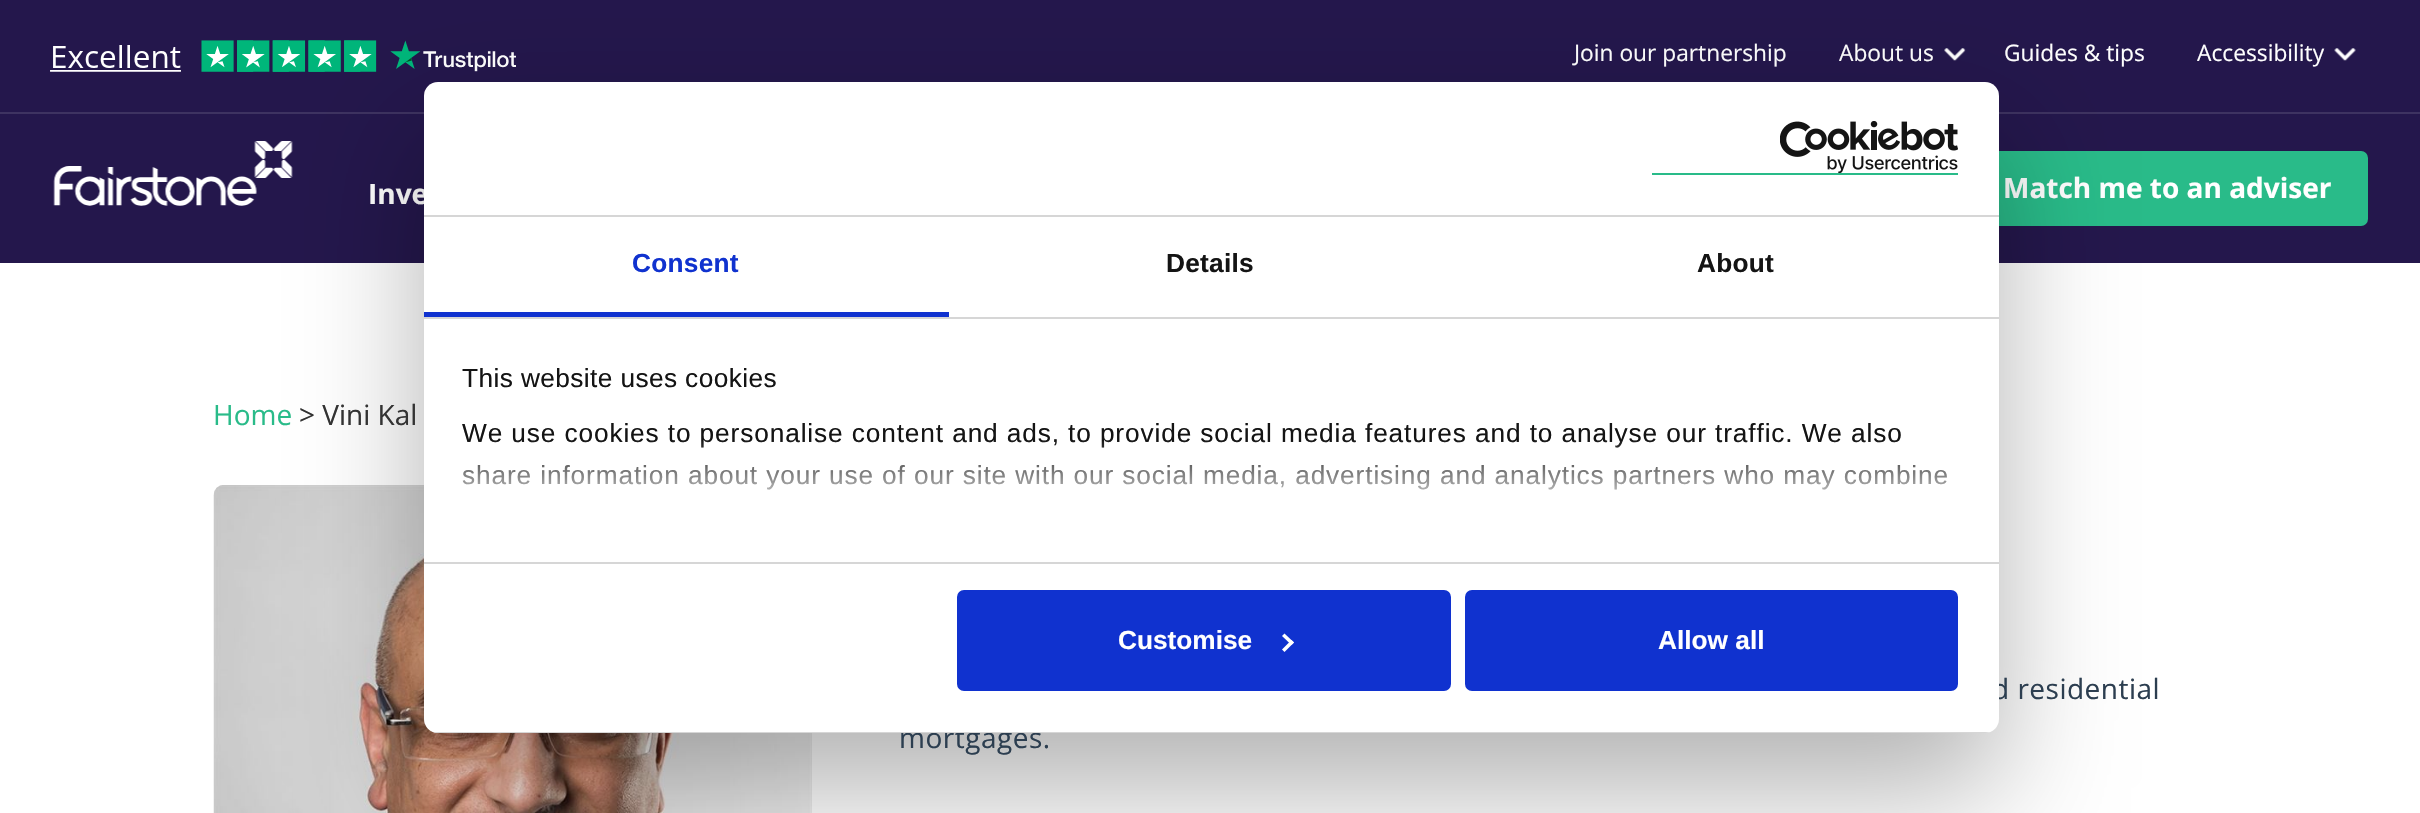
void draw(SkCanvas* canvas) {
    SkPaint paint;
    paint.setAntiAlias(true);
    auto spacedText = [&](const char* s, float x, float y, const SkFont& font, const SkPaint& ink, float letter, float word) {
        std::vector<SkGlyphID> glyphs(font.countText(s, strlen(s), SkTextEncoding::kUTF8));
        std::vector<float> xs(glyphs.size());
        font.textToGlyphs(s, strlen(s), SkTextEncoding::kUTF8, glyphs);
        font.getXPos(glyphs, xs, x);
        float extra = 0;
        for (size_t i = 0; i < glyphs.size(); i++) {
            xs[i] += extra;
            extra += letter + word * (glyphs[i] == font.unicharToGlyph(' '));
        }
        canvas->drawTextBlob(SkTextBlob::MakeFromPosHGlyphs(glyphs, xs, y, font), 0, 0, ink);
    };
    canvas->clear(0xFFFFFFFF);
    paint.setColor(0xFF24174C);
    canvas->drawRect(SkRect::MakeXYWH(0, 0, 2420, 263), paint);
    canvas->drawImageRect(SkImages::DeferredFromEncodedData(SkData::MakeFromFileName("img1.png")), SkRect::MakeXYWH(50, 40, 466, 32), SkSamplingOptions());
    SkFont font1(fontMgr->matchFamilyStyle("Open Sans", SkFontStyle::Normal()), 22.75f);
    font1.setSubpixel(true);
    paint.setColor(0xFFFFFFFF);
    canvas->drawString("Join our partnership", 1574, 61, font1, paint);
    canvas->drawString("About us", 1839, 61, font1, paint);
    canvas->drawImageRect(SkImages::DeferredFromEncodedData(SkData::MakeFromFileName("img2.png")), SkRect::MakeXYWH(1944, 48, 22, 13), SkSamplingOptions());
    canvas->drawString("Guides & tips", 2004, 61, font1, paint);
    canvas->drawString("Accessibility", 2197, 61, font1, paint);
    canvas->drawImageRect(SkImages::DeferredFromEncodedData(SkData::MakeFromFileName("img3.png")), SkRect::MakeXYWH(2334, 48, 22, 13), SkSamplingOptions());
    paint.setColor(0xFF3E3361);
    canvas->drawRect(SkRect::MakeXYWH(0, 112, 2420, 2), paint);
    canvas->drawImageRect(SkImages::DeferredFromEncodedData(SkData::MakeFromFileName("img4.png")), SkRect::MakeXYWH(53, 141, 240, 65), SkSamplingOptions());
    SkFont font2(fontMgr->matchFamilyStyle("Open Sans", SkFontStyle::Bold()), 28);
    font2.setSubpixel(true);
    paint.setColor(0xFFFFFFFF);
    canvas->drawString("Inve", 368, 204, font2, paint);
    paint.setColor(0xFF29BB89);
    canvas->drawRoundRect(SkRect::MakeXYWH(1966, 152, 401, 73), 6, 6, paint);
    paint.setStyle(SkPaint::kStroke_Style);
    paint.setStrokeWidth(2);
    canvas->drawRoundRect(SkRect::MakeXYWH(1966, 152, 401, 73), 6, 6, paint);
    paint.setStyle(SkPaint::kFill_Style);
    paint.setColor(0xFFFFFFFF);
    canvas->drawString("Match me to an adviser", 2003, 198, font2, paint);
    canvas->drawImageRect(SkImages::DeferredFromEncodedData(SkData::MakeFromFileName("img6.png")), SkRect::MakeXYWH(213, 485, 599, 328), SkSamplingOptions());
    paint.setColor(0x4D000000);
    paint.setMaskFilter(SkMaskFilter::MakeBlur(kNormal_SkBlurStyle, 59.5f));
    canvas->drawRoundRect(SkRect::MakeXYWH(424, 138, 1575, 651), 14, 14, paint);
    paint.setMaskFilter(nullptr);
    SkFont font3(fontMgr->matchFamilyStyle("Open Sans", SkFontStyle::Normal()), 28);
    font3.setSubpixel(true);
    paint.setColor(0xFF2C3E50);
    spacedText("d residential", 1992, 699, font3, paint, 0.5f, 0);
    spacedText("mortgages.", 899, 748, font3, paint, 0.5f, 0);
    paint.setColor(0xFFFFFFFF);
    canvas->drawRoundRect(SkRect::MakeXYWH(424, 82, 1575, 651), 14, 14, paint);
    paint.setColor(0xFFD6D6D6);
    canvas->drawRect(SkRect::MakeXYWH(424, 215, 1575, 2), paint);
    paint.setColor(0xFF29BB89);
    canvas->drawRect(SkRect::MakeXYWH(1652, 173, 306, 2), paint);
    canvas->drawImageRect(SkImages::DeferredFromEncodedData(SkData::MakeFromFileName("img5.png")), SkRect::MakeXYWH(1780, 121, 178, 52), SkSamplingOptions());
    paint.setColor(0xFFD6D6D6);
    canvas->drawRect(SkRect::MakeXYWH(424, 317, 1575, 2), paint);
    paint.setColor(0xFF1032CF);
    canvas->drawRect(SkRect::MakeXYWH(424, 312, 525, 5), paint);
    SkFont font4(fontMgr->matchFamilyStyle("Liberation Sans", SkFontStyle::Bold()), 26.25f);
    font4.setSubpixel(true);
    spacedText("Consent", 632, 272, font4, paint, 0.25f, 0);
    paint.setColor(0xFF141414);
    spacedText("Details", 1166, 272, font4, paint, 0.25f, 0);
    spacedText("About", 1697, 272, font4, paint, 0.25f, 0);
    paint.setColor(0xFFD6D6D6);
    canvas->drawRect(SkRect::MakeXYWH(424, 562, 1575, 2), paint);
    SkFont font5(fontMgr->matchFamilyStyle("Liberation Sans", SkFontStyle::Normal()), 26.25f);
    font5.setSubpixel(true);
    paint.setColor(0xFF141414);
    spacedText("This website uses cookies", 462, 387, font5, paint, 0.4f, 0);
    spacedText("We use cookies to personalise content and ads, to provide social media features and to analyse our traffic. We also", 462, 442, font5, paint, 0.88f, 0);
    spacedText("share information about your use of our site with our social media, advertising and analytics partners who may combine", 462, 484, font5, paint, 0.88f, 0);
    {
        const SkColor colors[] = {0xFFFFFFFF, 0xCCFFFFFF, 0x00FFFFFF};
        const float stops[] = {0, 0.5f, 1};
        const SkPoint ends[] = {{1193, 562}, {1193, 439}};
        paint.setShader(SkGradientShader::MakeLinear(ends, colors, stops, 3, SkTileMode::kClamp));
        paint.setAlpha(255);
    }
    canvas->drawRect(SkRect::MakeXYWH(462, 441, 1485, 49), paint);
    canvas->save();
    canvas->clipPath(SkPathBuilder().moveTo(438, 82).lineTo(1985, 82).cubicTo(1992.5f, 82, 1999, 88.5f, 1999, 96).lineTo(1999, 719).cubicTo(1999, 726.5f, 1992.5f, 733, 1985, 733).lineTo(438, 733).cubicTo(430.5f, 733, 424, 726.5f, 424, 719).lineTo(424, 96).cubicTo(424, 88.5f, 430.5f, 82, 438, 82).close().detach(), true);
    paint.setShader(nullptr);
    paint.setColor(0xFFD6D6D6);
    canvas->drawRect(SkRect::MakeXYWH(433, 732, 1557, 1), paint);
    canvas->restore();
    paint.setColor(0xFF1032CF);
    canvas->drawRoundRect(SkRect::MakeXYWH(959, 592, 490, 97), 5, 5, paint);
    paint.setStyle(SkPaint::kStroke_Style);
    paint.setStrokeWidth(4);
    canvas->drawRoundRect(SkRect::MakeXYWH(959, 592, 490, 97), 5, 5, paint);
    paint.setStyle(SkPaint::kFill_Style);
    paint.setColor(0xFFFFFFFF);
    canvas->drawString("Customise", 1118, 649, font4, paint);
    canvas->drawPath(SkPathBuilder().moveTo(1284.5f, 633.5f).lineTo(1294, 642.5f).lineTo(1291.5f, 645).lineTo(1282, 636).close().detach(), paint);
    canvas->drawPath(SkPathBuilder().moveTo(1291.5f, 640).lineTo(1294, 642.5f).lineTo(1284.5f, 652).lineTo(1282, 649.5f).close().detach(), paint);
    paint.setColor(0xFF1032CF);
    canvas->drawRoundRect(SkRect::MakeXYWH(1467, 592, 489, 97), 5, 5, paint);
    paint.setStyle(SkPaint::kStroke_Style);
    canvas->drawRoundRect(SkRect::MakeXYWH(1467, 592, 489, 97), 5, 5, paint);
    paint.setStyle(SkPaint::kFill_Style);
    paint.setColor(0xFFFFFFFF);
    canvas->drawString("Allow all", 1658, 649, font4, paint);
    paint.setColor(0xFF29BB89);
    canvas->drawString("Home", 213, 425, font3, paint);
    paint.setColor(0xFF333333);
    canvas->drawString("> Vini Kal", 299, 425, font3, paint);
}
